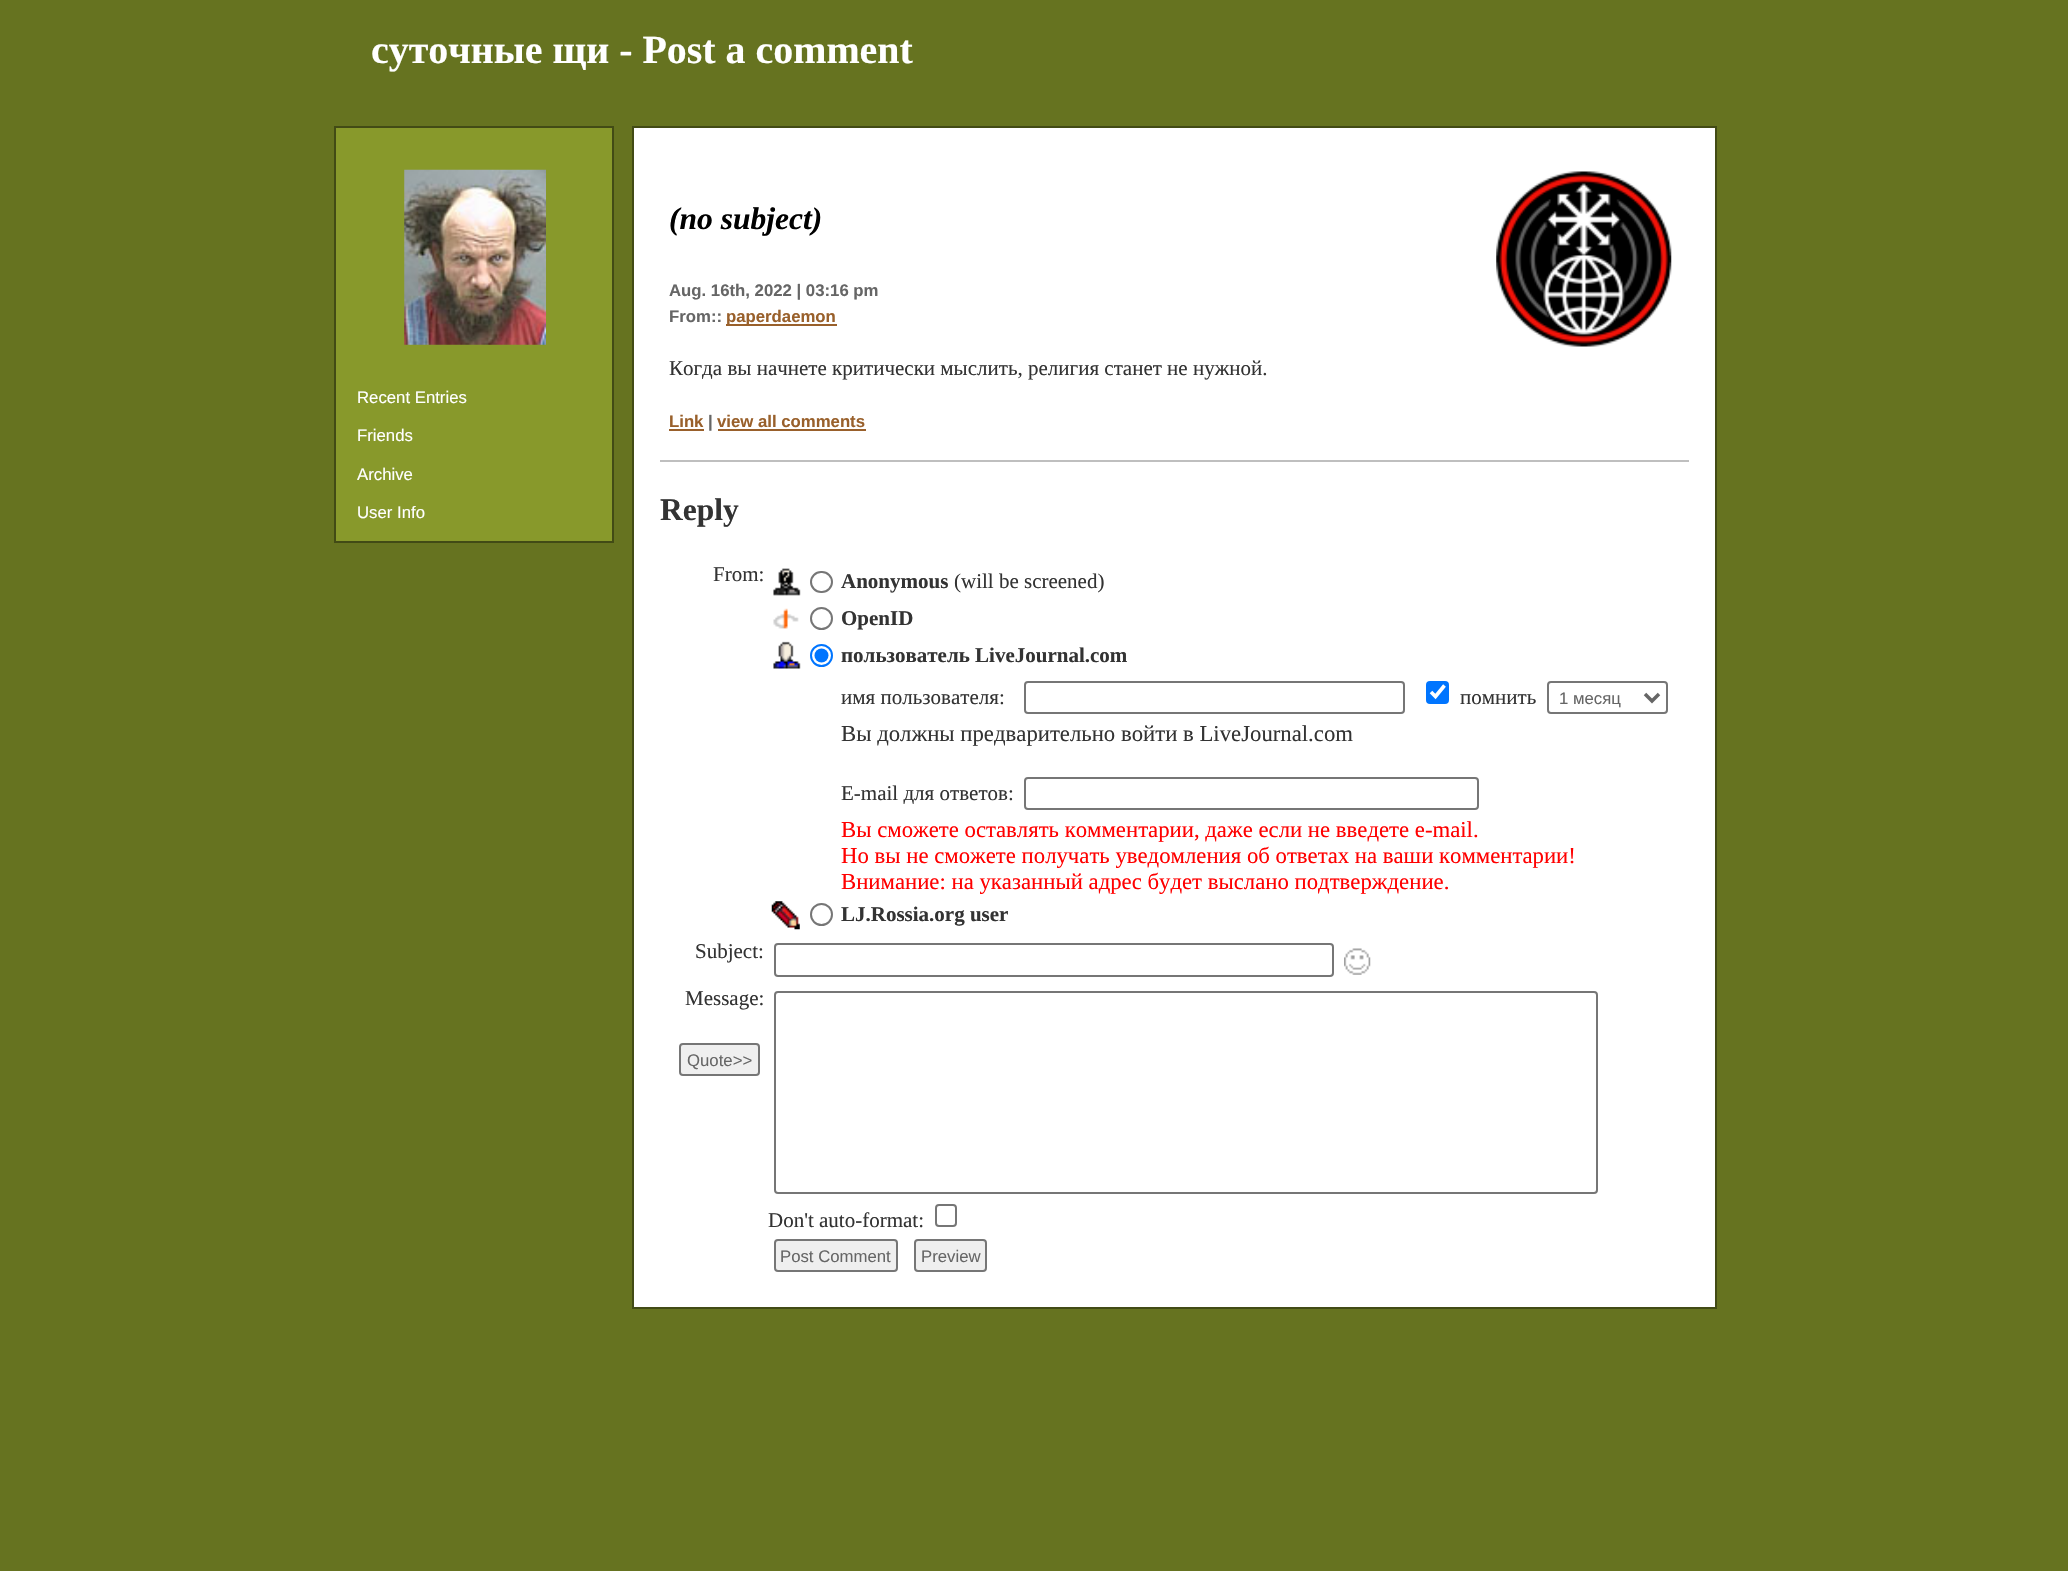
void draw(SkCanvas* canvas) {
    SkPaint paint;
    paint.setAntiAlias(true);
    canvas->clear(0xFF667320);
    SkFont font1(fontMgr->matchFamilyStyle("Liberation Serif", SkFontStyle::Bold()), 39.9f);
    font1.setSubpixel(true);
    paint.setColor(0xFFFFFFFF);
    canvas->drawString("суточные щи - Post a comment", 371, 63, font1, paint);
    paint.setColor(0xFF88992B);
    canvas->drawRect(SkRect::MakeXYWH(335, 127, 278, 415), paint);
    paint.setStyle(SkPaint::kStroke_Style);
    paint.setStrokeWidth(2);
    paint.setColor(0xFF424B15);
    canvas->drawRect(SkRect::MakeXYWH(335, 127, 278, 415), paint);
    canvas->drawImageRect(SkImages::DeferredFromEncodedData(SkData::MakeFromFileName("img1.png")), SkRect::MakeXYWH(404, 169, 142, 176), SkSamplingOptions());
    SkFont font2(fontMgr->matchFamilyStyle("Liberation Sans", SkFontStyle::Normal()), 16.75f);
    font2.setSubpixel(true);
    paint.setStyle(SkPaint::kFill_Style);
    paint.setColor(0xFFFFFFFF);
    canvas->drawString("Recent Entries", 357, 403, font2, paint);
    canvas->drawString("Friends", 357, 441, font2, paint);
    canvas->drawString("Archive", 357, 480, font2, paint);
    canvas->drawString("User Info", 357, 518, font2, paint);
    canvas->drawRect(SkRect::MakeXYWH(633, 127, 1083, 1181), paint);
    paint.setStyle(SkPaint::kStroke_Style);
    paint.setColor(0xFF424B15);
    canvas->drawRect(SkRect::MakeXYWH(633, 127, 1083, 1181), paint);
    paint.setStyle(SkPaint::kFill_Style);
    paint.setColor(0xFFBFBFBF);
    canvas->drawRect(SkRect::MakeXYWH(660, 460, 1029, 2), paint);
    SkFont font3(fontMgr->matchFamilyStyle("Liberation Serif", SkFontStyle::BoldItalic()), 31.5f);
    font3.setSubpixel(true);
    paint.setColor(0xFF000000);
    canvas->drawString("(no subject)", 669, 229, font3, paint);
    canvas->drawImageRect(SkImages::DeferredFromEncodedData(SkData::MakeFromFileName("img2.png")), SkRect::MakeXYWH(1496, 171, 176, 176), SkSamplingOptions());
    SkFont font4(fontMgr->matchFamilyStyle("Liberation Sans", SkFontStyle::Bold()), 16.75f);
    font4.setSubpixel(true);
    paint.setColor(0xFF666666);
    canvas->drawString("Aug. 16th, 2022 | 03:16 pm", 669, 296, font4, paint);
    canvas->drawString("From::", 669, 322, font4, paint);
    paint.setColor(0xFF99602B);
    canvas->drawRect(SkRect::MakeXYWH(726, 324, 111, 2), paint);
    canvas->drawString("paperdaemon", 726, 322, font4, paint);
    SkFont font5(fontMgr->matchFamilyStyle("Liberation Serif", SkFontStyle::Normal()), 21);
    font5.setSubpixel(true);
    paint.setColor(0xFF333333);
    canvas->drawString("Когда вы начнете критически мыслить, религия станет не нужной.", 669, 375, font5, paint);
    paint.setColor(0xFF99602B);
    canvas->drawString("Link", 669, 427, font4, paint);
    canvas->drawRect(SkRect::MakeXYWH(669, 429, 35, 2), paint);
    paint.setColor(0xFF666666);
    canvas->drawString("|", 708, 427, font4, paint);
    paint.setColor(0xFF99602B);
    canvas->drawString("view all comments", 717, 427, font4, paint);
    canvas->drawRect(SkRect::MakeXYWH(718, 429, 148, 2), paint);
    SkFont font6(fontMgr->matchFamilyStyle("Liberation Serif", SkFontStyle::Bold()), 31.5f);
    font6.setSubpixel(true);
    paint.setColor(0xFF333333);
    canvas->drawString("Reply", 660, 520, font6, paint);
    canvas->drawString("From:", 713, 581, font5, paint);
    canvas->drawImageRect(SkImages::DeferredFromEncodedData(SkData::MakeFromFileName("img3.png")), SkRect::MakeXYWH(773, 568, 28, 28), SkSamplingOptions());
    paint.setStyle(SkPaint::kStroke_Style);
    paint.setColor(0xFF767676);
    canvas->drawRoundRect(SkRect::MakeXYWH(811, 572, 21, 20), 10, 10, paint);
    SkFont font7(fontMgr->matchFamilyStyle("Liberation Serif", SkFontStyle::Bold()), 21);
    font7.setSubpixel(true);
    paint.setStyle(SkPaint::kFill_Style);
    paint.setColor(0xFF333333);
    canvas->drawString("Anonymous", 841, 588, font7, paint);
    canvas->drawString("(will be screened)", 954, 588, font5, paint);
    canvas->drawImageRect(SkImages::DeferredFromEncodedData(SkData::MakeFromFileName("img4.png")), SkRect::MakeXYWH(773, 608, 26, 21), SkSamplingOptions());
    paint.setStyle(SkPaint::kStroke_Style);
    paint.setColor(0xFF767676);
    canvas->drawCircle(821.5f, 618.5f, 10.5f, paint);
    paint.setStyle(SkPaint::kFill_Style);
    paint.setColor(0xFF333333);
    canvas->drawString("OpenID", 841, 625, font7, paint);
    canvas->drawImageRect(SkImages::DeferredFromEncodedData(SkData::MakeFromFileName("img5.png")), SkRect::MakeXYWH(773, 641, 28, 28), SkSamplingOptions());
    paint.setStyle(SkPaint::kStroke_Style);
    paint.setColor(0xFF0075FF);
    canvas->drawCircle(821.5f, 655.5f, 10.5f, paint);
    paint.setStyle(SkPaint::kFill_Style);
    canvas->drawCircle(821.5f, 655.5f, 7, paint);
    paint.setColor(0xFF333333);
    canvas->drawString("пользователь LiveJournal.com", 841, 662, font7, paint);
    canvas->drawString("имя пользователя:", 841, 704, font5, paint);
    paint.setStyle(SkPaint::kStroke_Style);
    paint.setColor(0xFF767676);
    canvas->drawRoundRect(SkRect::MakeXYWH(1025, 682, 379, 31), 3, 3, paint);
    paint.setStyle(SkPaint::kFill_Style);
    paint.setColor(0xFF0075FF);
    canvas->drawRoundRect(SkRect::MakeXYWH(1426, 681, 23, 23), 4, 4, paint);
    paint.setStyle(SkPaint::kStroke_Style);
    paint.setStrokeWidth(3.6f);
    paint.setColor(0xFFFFFFFF);
    canvas->drawPath(SkPathBuilder().moveTo(1431, 692).lineTo(1435.5f, 696.5f).lineTo(1444.5f, 685.5f).detach(), paint);
    paint.setStyle(SkPaint::kFill_Style);
    paint.setColor(0xFF333333);
    canvas->drawString("помнить", 1460, 704, font5, paint);
    paint.setStyle(SkPaint::kStroke_Style);
    paint.setStrokeWidth(2);
    paint.setColor(0xFF767676);
    canvas->drawRoundRect(SkRect::MakeXYWH(1548, 682, 119, 31), 3, 3, paint);
    paint.setStrokeWidth(3.5f);
    paint.setColor(0xFF666666);
    canvas->drawPath(SkPathBuilder().moveTo(1645, 694).lineTo(1652, 701).lineTo(1659, 694).detach(), paint);
    paint.setStyle(SkPaint::kFill_Style);
    canvas->drawString("1 месяц", 1559, 704, font2, paint);
    SkFont font8(fontMgr->matchFamilyStyle("Liberation Serif", SkFontStyle::Normal()), 22.75f);
    font8.setSubpixel(true);
    paint.setColor(0xFF333333);
    canvas->drawString("Вы должны предварительно войти в LiveJournal.com", 841, 741, font8, paint);
    canvas->drawString("E-mail для ответов:", 841, 800, font5, paint);
    paint.setStyle(SkPaint::kStroke_Style);
    paint.setStrokeWidth(2);
    paint.setColor(0xFF767676);
    canvas->drawRoundRect(SkRect::MakeXYWH(1025, 778, 453, 31), 3, 3, paint);
    paint.setStyle(SkPaint::kFill_Style);
    paint.setColor(0xFFFF0000);
    canvas->drawString("Вы сможете оставлять комментарии, даже если не введете e-mail.", 841, 837, font8, paint);
    canvas->drawString("Но вы не сможете получать уведомления об ответах на ваши комментарии!", 841, 863, font8, paint);
    canvas->drawString("Внимание: на указанный адрес будет выслано подтверждение.", 841, 889, font8, paint);
    canvas->drawImageRect(SkImages::DeferredFromEncodedData(SkData::MakeFromFileName("img6.png")), SkRect::MakeXYWH(771, 901, 29, 29), SkSamplingOptions());
    paint.setStyle(SkPaint::kStroke_Style);
    paint.setColor(0xFF767676);
    canvas->drawCircle(821.5f, 914.5f, 10.5f, paint);
    paint.setStyle(SkPaint::kFill_Style);
    paint.setColor(0xFF333333);
    canvas->drawString("LJ.Rossia.org user", 841, 921, font7, paint);
    canvas->drawString("Subject:", 695, 958, font5, paint);
    paint.setStyle(SkPaint::kStroke_Style);
    paint.setColor(0xFF767676);
    canvas->drawRoundRect(SkRect::MakeXYWH(775, 944, 558, 32), 3, 3, paint);
    canvas->drawImageRect(SkImages::DeferredFromEncodedData(SkData::MakeFromFileName("img7.png")), SkRect::MakeXYWH(1344, 948, 27, 27), SkSamplingOptions());
    paint.setStyle(SkPaint::kFill_Style);
    paint.setColor(0xFF333333);
    canvas->drawString("Message:", 685, 1005, font5, paint);
    paint.setColor(0xFFEFEFEF);
    canvas->drawRoundRect(SkRect::MakeXYWH(680, 1044, 79, 31), 3, 3, paint);
    paint.setStyle(SkPaint::kStroke_Style);
    paint.setColor(0xFF767676);
    canvas->drawRoundRect(SkRect::MakeXYWH(680, 1044, 79, 31), 3, 3, paint);
    paint.setStyle(SkPaint::kFill_Style);
    paint.setColor(0xFF666666);
    canvas->drawString("Quote>>", 687, 1066, font2, paint);
    paint.setStyle(SkPaint::kStroke_Style);
    paint.setColor(0xFF767676);
    canvas->drawRoundRect(SkRect::MakeXYWH(775, 992, 822, 201), 3, 3, paint);
    paint.setStyle(SkPaint::kFill_Style);
    paint.setColor(0xFF333333);
    canvas->drawString("Don't auto-format:", 768, 1227, font5, paint);
    paint.setStyle(SkPaint::kStroke_Style);
    paint.setColor(0xFF767676);
    canvas->drawRoundRect(SkRect::MakeXYWH(936, 1205, 20, 21), 3, 3, paint);
    paint.setStyle(SkPaint::kFill_Style);
    paint.setColor(0xFFEFEFEF);
    canvas->drawRoundRect(SkRect::MakeXYWH(775, 1240, 122, 31), 3, 3, paint);
    paint.setStyle(SkPaint::kStroke_Style);
    paint.setColor(0xFF767676);
    canvas->drawRoundRect(SkRect::MakeXYWH(775, 1240, 122, 31), 3, 3, paint);
    paint.setStyle(SkPaint::kFill_Style);
    paint.setColor(0xFF666666);
    canvas->drawString("Post Comment", 780, 1262, font2, paint);
    paint.setColor(0xFFEFEFEF);
    canvas->drawRoundRect(SkRect::MakeXYWH(915, 1240, 71, 31), 3, 3, paint);
    paint.setStyle(SkPaint::kStroke_Style);
    paint.setColor(0xFF767676);
    canvas->drawRoundRect(SkRect::MakeXYWH(915, 1240, 71, 31), 3, 3, paint);
    paint.setStyle(SkPaint::kFill_Style);
    paint.setColor(0xFF666666);
    canvas->drawString("Preview", 921, 1262, font2, paint);
}
